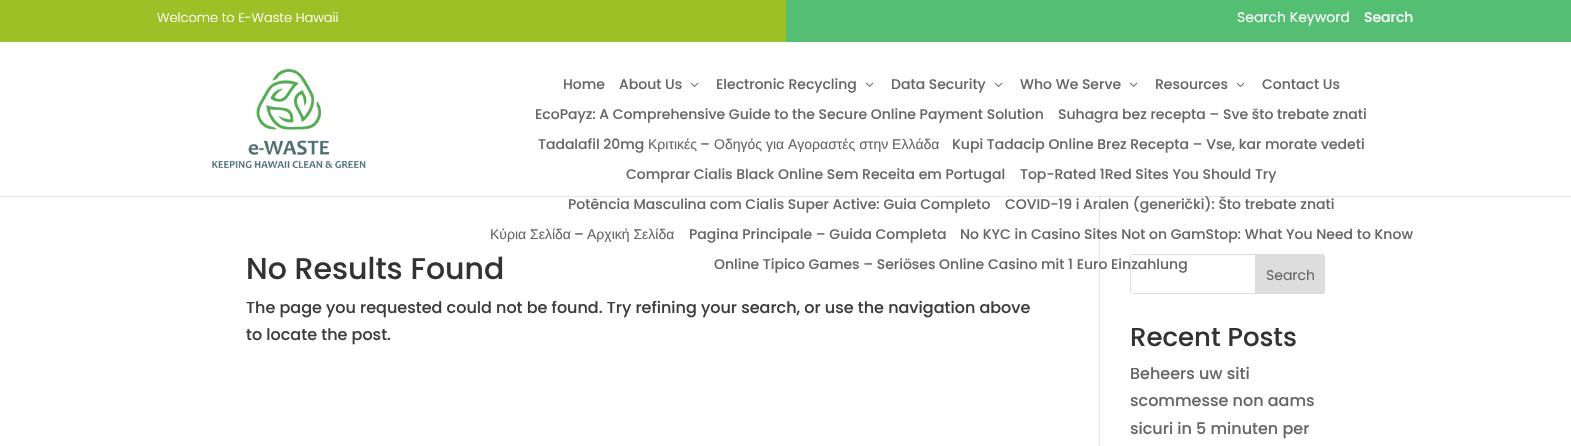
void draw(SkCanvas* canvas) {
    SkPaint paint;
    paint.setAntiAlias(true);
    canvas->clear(0xFFFFFFFF);
    paint.setColor(0xFFE6E6E6);
    canvas->drawRect(SkRect::MakeXYWH(0, 196, 1571, 1), paint);
    paint.setColor(0xFF54BE73);
    canvas->drawRect(SkRect::MakeXYWH(786, 0, 785, 42), paint);
    paint.setColor(0xFF9CC026);
    canvas->drawRect(SkRect::MakeXYWH(0, 0, 786, 42), paint);
    SkFont font1(fontMgr->matchFamilyStyle("Poppins", SkFontStyle(300, SkFontStyle::kNormal_Width, SkFontStyle::kUpright_Slant)), 13);
    font1.setSubpixel(true);
    paint.setColor(0xFFFFFFFF);
    canvas->drawString("Welcome to E-Waste Hawaii", 157, 22, font1, paint);
    SkFont font2(fontMgr->matchFamilyStyle("Poppins", SkFontStyle::Normal()), 14);
    font2.setSubpixel(true);
    canvas->drawString("Search Keyword", 1237, 22, font2, paint);
    SkFont font3(fontMgr->matchFamilyStyle("Poppins", SkFontStyle(500, SkFontStyle::kNormal_Width, SkFontStyle::kUpright_Slant)), 14);
    font3.setSubpixel(true);
    canvas->drawString("Search", 1364, 22, font3, paint);
    canvas->drawImageRect(SkImages::DeferredFromEncodedData(SkData::MakeFromFileName("img1.png")), SkRect::MakeXYWH(212, 69, 154, 99), SkSamplingOptions());
    paint.setColor(0xFF666666);
    canvas->drawString("Home", 563, 89, font3, paint);
    canvas->drawString("About Us", 619, 89, font3, paint);
    canvas->drawImageRect(SkImages::DeferredFromEncodedData(SkData::MakeFromFileName("img2.png")), SkRect::MakeXYWH(690, 82, 9, 5), SkSamplingOptions());
    canvas->drawString("Electronic Recycling", 716, 89, font3, paint);
    canvas->drawImageRect(SkImages::DeferredFromEncodedData(SkData::MakeFromFileName("img2.png")), SkRect::MakeXYWH(865, 82, 9, 5), SkSamplingOptions());
    canvas->drawString("Data Security", 891, 89, font3, paint);
    canvas->drawImageRect(SkImages::DeferredFromEncodedData(SkData::MakeFromFileName("img2.png")), SkRect::MakeXYWH(994, 82, 9, 5), SkSamplingOptions());
    canvas->drawString("Who We Serve", 1020, 89, font3, paint);
    canvas->drawImageRect(SkImages::DeferredFromEncodedData(SkData::MakeFromFileName("img2.png")), SkRect::MakeXYWH(1129, 82, 9, 5), SkSamplingOptions());
    canvas->drawString("Resources", 1155, 89, font3, paint);
    canvas->drawImageRect(SkImages::DeferredFromEncodedData(SkData::MakeFromFileName("img2.png")), SkRect::MakeXYWH(1236, 82, 9, 5), SkSamplingOptions());
    canvas->drawString("Contact Us", 1262, 89, font3, paint);
    canvas->drawString("EcoPayz: A Comprehensive Guide to the Secure Online Payment Solution", 535, 119, font3, paint);
    canvas->drawString("Suhagra bez recepta – Sve što trebate znati", 1058, 119, font3, paint);
    canvas->drawString("Tadalafil 20mg", 538, 149, font3, paint);
    SkFont font4(fontMgr->matchFamilyStyle("Liberation Sans", SkFontStyle::Normal()), 14);
    font4.setSubpixel(true);
    canvas->drawString("Κριτικές", 648, 149, font4, paint);
    canvas->drawString("–", 700, 149, font3, paint);
    canvas->drawString("Οδηγός για Αγοραστές στην Ελλάδα", 714, 149, font4, paint);
    canvas->drawString("Kupi Tadacip Online Brez Recepta – Vse, kar morate vedeti", 952, 149, font3, paint);
    canvas->drawString("Comprar Cialis Black Online Sem Receita em Portugal", 626, 179, font3, paint);
    canvas->drawString("Top-Rated 1Red Sites You Should Try", 1020, 179, font3, paint);
    canvas->drawString("Potência Masculina com Cialis Super Active: Guia Completo", 568, 209, font3, paint);
    paint.setColor(0xFFE2E2E2);
    canvas->drawRect(SkRect::MakeXYWH(1099, 196, 1, 250), paint);
    paint.setColor(0xFFCBCBCB);
    canvas->drawRect(SkRect::MakeXYWH(1099, 196, 1, 1), paint);
    paint.setColor(0xFF666666);
    canvas->drawString("COVID-19 i Aralen (generički): Što trebate znati", 1005, 209, font3, paint);
    canvas->drawString("Κύρια Σελίδα", 490, 239, font4, paint);
    canvas->drawString("–", 574, 239, font3, paint);
    canvas->drawString("Αρχική Σελίδα", 587, 239, font4, paint);
    canvas->drawString("Pagina Principale – Guida Completa", 689, 239, font3, paint);
    canvas->drawString("No KYC in Casino Sites Not on GamStop: What You Need to Know", 960, 239, font3, paint);
    paint.setStyle(SkPaint::kStroke_Style);
    paint.setStrokeWidth(1);
    paint.setColor(0xFFDDDDDD);
    canvas->drawRoundRect(SkRect::MakeXYWH(1130.5f, 254.5f, 194, 39), 2.5f, 2.5f, paint);
    paint.setStyle(SkPaint::kFill_Style);
    paint.setColor(0xFF666666);
    canvas->drawString("Online Tipico Games – Seriöses Online Casino mit 1 Euro Einzahlung", 714, 269, font3, paint);
    SkFont font5(fontMgr->matchFamilyStyle("Poppins", SkFontStyle(500, SkFontStyle::kNormal_Width, SkFontStyle::kUpright_Slant)), 30);
    font5.setSubpixel(true);
    paint.setColor(0xFF333333);
    canvas->drawString("No Results Found", 246, 279, font5, paint);
    SkFont font6(fontMgr->matchFamilyStyle("Poppins", SkFontStyle(500, SkFontStyle::kNormal_Width, SkFontStyle::kUpright_Slant)), 16);
    font6.setSubpixel(true);
    paint.setColor(0xFF3D3D3D);
    canvas->drawString("The page you requested could not be found. Try refining your search, or use the navigation above", 246, 313, font6, paint);
    canvas->drawString("to locate the post.", 246, 340, font6, paint);
    paint.setColor(0xFFDDDDDD);
    canvas->drawPath(SkPathBuilder().moveTo(1255.5f, 254.5f).lineTo(1322, 254.5f).cubicTo(1323.5f, 254.5f, 1324.5f, 255.5f, 1324.5f, 257).lineTo(1324.5f, 291).cubicTo(1324.5f, 292.5f, 1323.5f, 293.5f, 1322, 293.5f).lineTo(1255.5f, 293.5f).close().detach(), paint);
    paint.setStyle(SkPaint::kStroke_Style);
    canvas->drawPath(SkPathBuilder().moveTo(1255.5f, 254.5f).lineTo(1322, 254.5f).cubicTo(1323.5f, 254.5f, 1324.5f, 255.5f, 1324.5f, 257).lineTo(1324.5f, 291).cubicTo(1324.5f, 292.5f, 1323.5f, 293.5f, 1322, 293.5f).lineTo(1255.5f, 293.5f).close().detach(), paint);
    paint.setStyle(SkPaint::kFill_Style);
    paint.setColor(0xFF666666);
    canvas->drawString("Search", 1266, 280, font2, paint);
    SkFont font7(fontMgr->matchFamilyStyle("Poppins", SkFontStyle(500, SkFontStyle::kNormal_Width, SkFontStyle::kUpright_Slant)), 26);
    font7.setSubpixel(true);
    paint.setColor(0xFF333333);
    canvas->drawString("Recent Posts", 1130, 346, font7, paint);
    paint.setColor(0xFF666666);
    canvas->drawString("Beheers uw siti", 1130, 379, font6, paint);
    canvas->drawString("scommesse non aams", 1130, 406, font6, paint);
    canvas->drawString("sicuri in 5 minuten per", 1130, 434, font6, paint);
}
